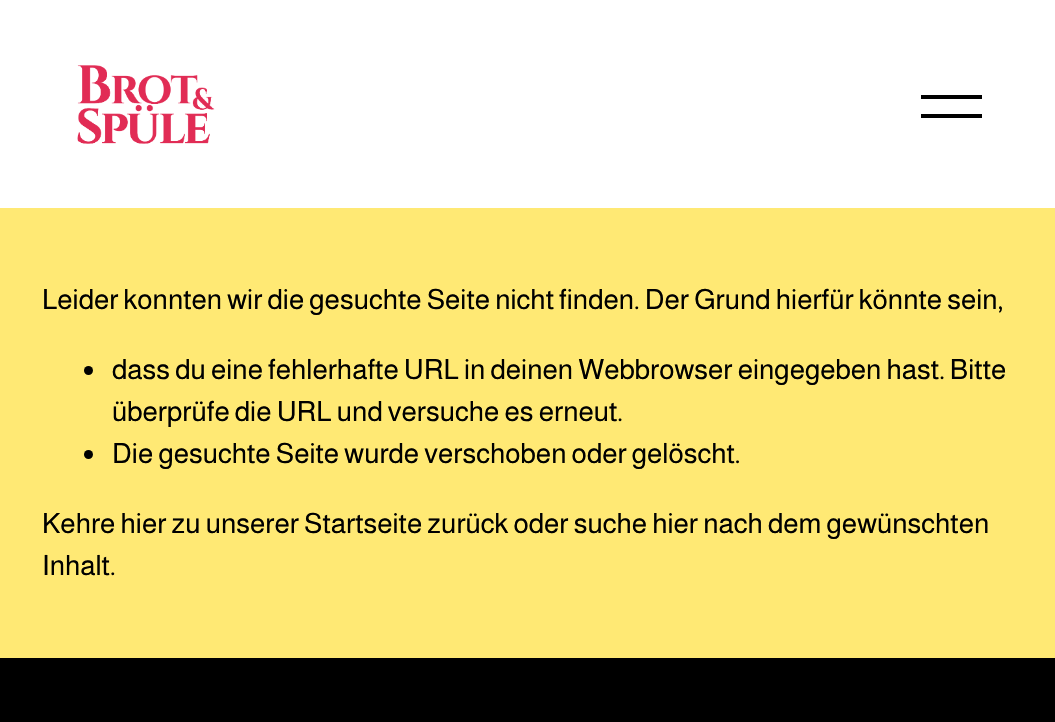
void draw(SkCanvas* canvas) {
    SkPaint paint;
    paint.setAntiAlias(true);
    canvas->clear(0xFFFFE974);
    paint.setColor(0xFFFFFFFF);
    canvas->drawRect(SkRect::MakeXYWH(0, 0, 1055, 208), paint);
    canvas->drawImageRect(SkImages::DeferredFromEncodedData(SkData::MakeFromFileName("img1.png")), SkRect::MakeXYWH(77, 65, 138, 79), SkSamplingOptions());
    paint.setColor(0xFF000000);
    canvas->drawRect(SkRect::MakeXYWH(921, 95, 61, 4), paint);
    canvas->drawRect(SkRect::MakeXYWH(921, 114, 61, 4), paint);
    SkFont font1(fontMgr->matchFamilyStyle("Almarai", SkFontStyle::Normal()), 28);
    font1.setSubpixel(true);
    canvas->drawString("Leider konnten wir die gesuchte Seite nicht finden. Der Grund hierfür könnte sein,", 42, 309, font1, paint);
    canvas->drawCircle(88.5f, 370.5f, 4.5f, paint);
    canvas->drawString("dass du eine fehlerhafte URL in deinen Webbrowser eingegeben hast. Bitte", 112, 379, font1, paint);
    canvas->drawString("überprüfe die URL und versuche es erneut.", 112, 421, font1, paint);
    canvas->drawCircle(88.5f, 454.5f, 4.5f, paint);
    canvas->drawString("Die gesuchte Seite wurde verschoben oder gelöscht.", 112, 463, font1, paint);
    canvas->drawString("Kehre hier zu unserer Startseite zurück oder suche hier nach dem gewünschten", 42, 533, font1, paint);
    canvas->drawString("Inhalt.", 42, 575, font1, paint);
    canvas->drawRect(SkRect::MakeXYWH(0, 658, 1055, 64), paint);
}
